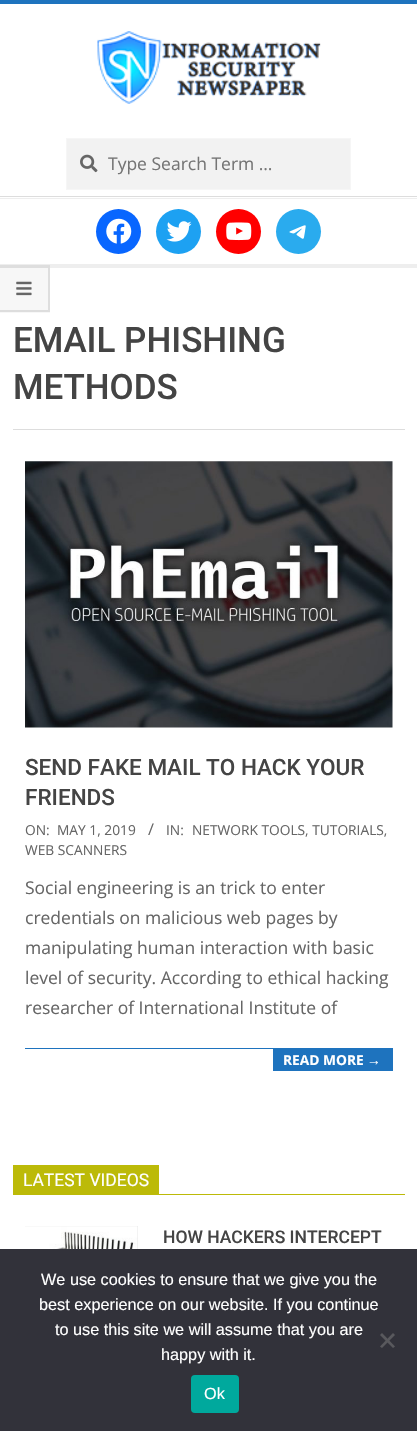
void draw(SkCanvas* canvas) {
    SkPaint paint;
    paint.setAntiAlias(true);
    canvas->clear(0xFFFFFFFF);
    paint.setColor(0xFF1E73BE);
    canvas->drawRect(SkRect::MakeXYWH(0, 0, 417, 4), paint);
    paint.setColor(0xFFDDDDDD);
    canvas->drawRect(SkRect::MakeXYWH(0, 196, 417, 1), paint);
    canvas->drawImageRect(SkImages::DeferredFromEncodedData(SkData::MakeFromFileName("img1.png")), SkRect::MakeXYWH(97, 31, 224, 73), SkSamplingOptions());
    paint.setColor(0xFFF2F2F2);
    canvas->drawRect(SkRect::MakeXYWH(66.5f, 138.5f, 284, 51), paint);
    paint.setStyle(SkPaint::kStroke_Style);
    paint.setStrokeWidth(1);
    paint.setColor(0xFFF6F6F6);
    canvas->drawRect(SkRect::MakeXYWH(66.5f, 138.5f, 284, 51), paint);
    canvas->drawImageRect(SkImages::DeferredFromEncodedData(SkData::MakeFromFileName("img2.png")), SkRect::MakeXYWH(80, 154, 18, 19), SkSamplingOptions());
    SkFont font1(fontMgr->matchFamilyStyle("Open Sans", SkFontStyle::Normal()), 17.5f);
    font1.setSubpixel(true);
    paint.setStyle(SkPaint::kFill_Style);
    paint.setColor(0xFF757575);
    canvas->drawString("Type Search Term …", 108, 170, font1, paint);
    paint.setColor(0xFFEEEEEE);
    canvas->drawRect(SkRect::MakeXYWH(0, 264, 417, 4), paint);
    canvas->drawRect(SkRect::MakeXYWH(0, 198, 417, 1), paint);
    paint.setColor(0xFF0866FF);
    canvas->drawCircle(118.5f, 231.5f, 22.5f, paint);
    canvas->drawImageRect(SkImages::DeferredFromEncodedData(SkData::MakeFromFileName("img3.png")), SkRect::MakeXYWH(106, 218, 26, 26), SkSamplingOptions());
    paint.setColor(0xFF1DA1F2);
    canvas->drawCircle(178.5f, 231.5f, 22.5f, paint);
    canvas->drawImageRect(SkImages::DeferredFromEncodedData(SkData::MakeFromFileName("img4.png")), SkRect::MakeXYWH(166, 221, 26, 21), SkSamplingOptions());
    paint.setColor(0xFFFF0000);
    canvas->drawCircle(238.5f, 231.5f, 22.5f, paint);
    canvas->drawImageRect(SkImages::DeferredFromEncodedData(SkData::MakeFromFileName("img5.png")), SkRect::MakeXYWH(226, 222, 26, 19), SkSamplingOptions());
    paint.setColor(0xFF2AABEE);
    canvas->drawCircle(298.5f, 231.5f, 22.5f, paint);
    canvas->drawImageRect(SkImages::DeferredFromEncodedData(SkData::MakeFromFileName("img6.png")), SkRect::MakeXYWH(289, 225, 17, 14), SkSamplingOptions());
    paint.setColor(0xFFF7F7F7);
    canvas->drawRect(SkRect::MakeXYWH(0, 265, 50, 48), paint);
    paint.setColor(0xFFDEDEDE);
    canvas->drawPath(SkPathBuilder().moveTo(0, 265).lineTo(50, 265).lineTo(48, 268).lineTo(0, 268).close().detach(), paint);
    paint.setColor(0x1A000000);
    canvas->drawPath(SkPathBuilder().moveTo(50, 265).lineTo(50, 312).lineTo(48, 310).lineTo(48, 268).close().detach(), paint);
    canvas->drawPath(SkPathBuilder().moveTo(50, 312).lineTo(0, 312).lineTo(0, 310).lineTo(48, 310).close().detach(), paint);
    canvas->drawImageRect(SkImages::DeferredFromEncodedData(SkData::MakeFromFileName("img7.png")), SkRect::MakeXYWH(16, 281, 16, 15), SkSamplingOptions());
    paint.setColor(0xFFDDDDDD);
    canvas->drawRect(SkRect::MakeXYWH(13, 429, 392, 1), paint);
    SkFont font2(fontMgr->matchFamilyStyle("Roboto", SkFontStyle(500, SkFontStyle::kNormal_Width, SkFontStyle::kUpright_Slant)), 35);
    font2.setSubpixel(true);
    paint.setColor(0xFF444444);
    canvas->drawString("EMAIL PHISHING", 13, 352, font2, paint);
    canvas->drawString("METHODS", 13, 399, font2, paint);
    canvas->drawImageRect(SkImages::DeferredFromEncodedData(SkData::MakeFromFileName("img8.png")), SkRect::MakeXYWH(25, 461, 368, 267), SkSamplingOptions());
    SkFont font3(fontMgr->matchFamilyStyle("Roboto", SkFontStyle(500, SkFontStyle::kNormal_Width, SkFontStyle::kUpright_Slant)), 22.5f);
    font3.setSubpixel(true);
    canvas->drawString("SEND FAKE MAIL TO HACK YOUR", 25, 775, font3, paint);
    canvas->drawString("FRIENDS", 25, 805, font3, paint);
    SkFont font4(fontMgr->matchFamilyStyle("Open Sans", SkFontStyle::Normal()), 13.75f);
    font4.setSubpixel(true);
    paint.setColor(0xFF666666);
    canvas->drawString("ON:", 25, 835, font4, paint);
    canvas->drawString("MAY 1, 2019", 57, 835, font4, paint);
    SkFont font5(fontMgr->matchFamilyStyle("Open Sans", SkFontStyle::Normal()), 16.25f);
    font5.setSubpixel(true);
    canvas->drawString("/", 148, 835, font5, paint);
    canvas->drawString("IN:", 166, 835, font4, paint);
    canvas->drawString("NETWORK TOOLS, TUTORIALS,", 192, 835, font4, paint);
    canvas->drawString("WEB SCANNERS", 25, 855, font4, paint);
    canvas->drawString("Social engineering is an trick to enter", 25, 894, font1, paint);
    canvas->drawString("credentials on malicious web pages by", 25, 924, font1, paint);
    canvas->drawString("manipulating human interaction with basic", 25, 954, font1, paint);
    canvas->drawString("level of security. According to ethical hacking", 25, 984, font1, paint);
    canvas->drawString("researcher of International Institute of", 25, 1014, font1, paint);
    paint.setColor(0xFF1E73BE);
    canvas->drawRect(SkRect::MakeXYWH(25, 1048, 368, 1), paint);
    canvas->drawRect(SkRect::MakeXYWH(273, 1049, 120, 22), paint);
    SkFont font6(fontMgr->matchFamilyStyle("Open Sans", SkFontStyle::Bold()), 13.75f);
    font6.setSubpixel(true);
    paint.setColor(0xFFFFFFFF);
    canvas->drawString("READ MORE", 283, 1065, font6, paint);
    SkFont font7(fontMgr->matchFamilyStyle("Liberation Sans", SkFontStyle::Bold()), 13.75f);
    font7.setSubpixel(true);
    canvas->drawString("→", 367, 1065, font7, paint);
    paint.setColor(0xFFBCBA08);
    canvas->drawRect(SkRect::MakeXYWH(13, 1165, 146, 29), paint);
    SkFont font8(fontMgr->matchFamilyStyle("Roboto", SkFontStyle::Normal()), 17.5f);
    font8.setSubpixel(true);
    paint.setColor(0xFFFFFFFF);
    canvas->drawString("LATEST VIDEOS", 23, 1186, font8, paint);
    paint.setColor(0xFFBCBA08);
    canvas->drawRect(SkRect::MakeXYWH(13, 1194, 392, 1), paint);
    paint.setColor(0xFFE6E6E6);
    canvas->drawRect(SkRect::MakeXYWH(25, 1226, 113, 23), paint);
    canvas->drawImageRect(SkImages::DeferredFromEncodedData(SkData::MakeFromFileName("img9.png")), SkRect::MakeXYWH(25, 1226, 113, 23), SkSamplingOptions());
    SkFont font9(fontMgr->matchFamilyStyle("Roboto", SkFontStyle(500, SkFontStyle::kNormal_Width, SkFontStyle::kUpright_Slant)), 17.5f);
    font9.setSubpixel(true);
    paint.setColor(0xFF444444);
    canvas->drawString("HOW HACKERS INTERCEPT", 163, 1243, font9, paint);
    paint.setColor(0xFF32323A);
    canvas->drawRect(SkRect::MakeXYWH(0, 1249, 417, 182), paint);
    SkFont font10(fontMgr->matchFamilyStyle("Liberation Sans", SkFontStyle::Normal()), 16.25f);
    font10.setSubpixel(true);
    paint.setColor(0xFFFFFFFF);
    canvas->drawString("We use cookies to ensure that we give you the", 41, 1285, font10, paint);
    canvas->drawString("best experience on our website. If you continue", 39, 1310, font10, paint);
    canvas->drawString("to use this site we will assume that you are", 55, 1335, font10, paint);
    canvas->drawString("happy with it.", 161, 1360, font10, paint);
    paint.setColor(0xFF59595D);
    canvas->drawPath(SkPathBuilder().moveTo(393, 1333).lineTo(395, 1335).lineTo(382, 1348).lineTo(380, 1346.5f).close().detach(), paint);
    canvas->drawPath(SkPathBuilder().moveTo(380, 1335).lineTo(382, 1333).lineTo(395, 1346.5f).lineTo(393, 1348).close().detach(), paint);
    paint.setColor(0xFF00A99D);
    canvas->drawRoundRect(SkRect::MakeXYWH(191, 1375, 48, 38), 4, 4, paint);
    paint.setColor(0xFFFFFFFF);
    canvas->drawString("Ok", 204, 1399, font10, paint);
}
